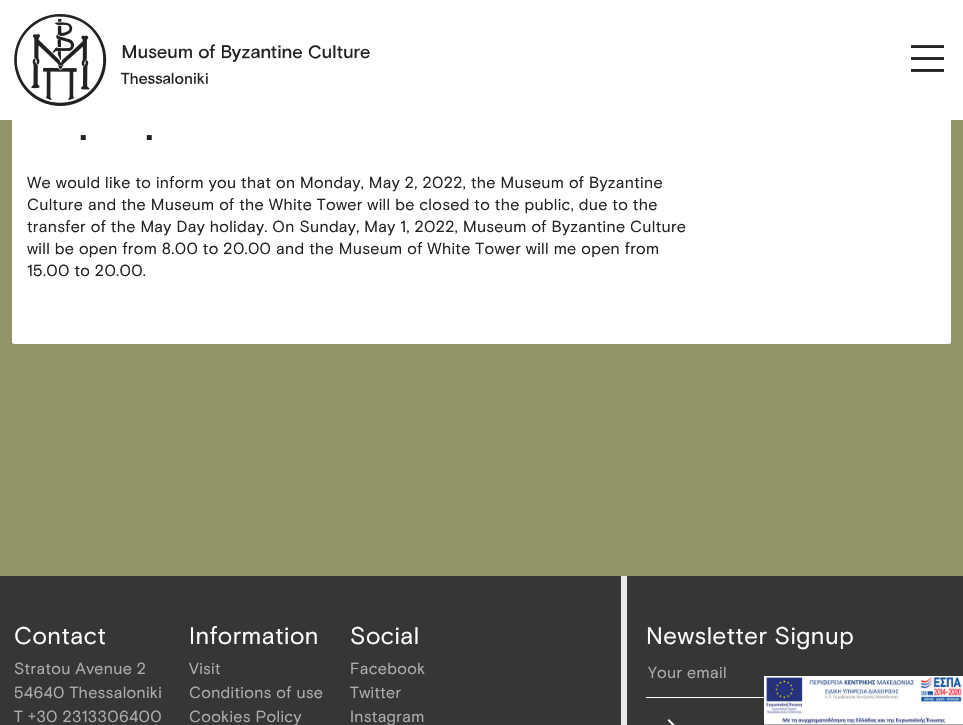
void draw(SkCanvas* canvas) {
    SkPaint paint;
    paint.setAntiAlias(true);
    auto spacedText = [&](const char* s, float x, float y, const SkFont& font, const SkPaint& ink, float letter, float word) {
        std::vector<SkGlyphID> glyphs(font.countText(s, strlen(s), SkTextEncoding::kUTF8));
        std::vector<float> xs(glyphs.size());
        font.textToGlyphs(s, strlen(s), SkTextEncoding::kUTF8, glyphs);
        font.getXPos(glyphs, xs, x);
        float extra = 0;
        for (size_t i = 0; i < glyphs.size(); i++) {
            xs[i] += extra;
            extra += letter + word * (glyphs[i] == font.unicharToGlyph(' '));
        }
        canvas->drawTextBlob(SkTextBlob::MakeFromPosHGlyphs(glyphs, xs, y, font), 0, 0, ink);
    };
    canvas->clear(0xFF939466);
    paint.setColor(0xFFFFFFFF);
    canvas->drawPath(SkPathBuilder().moveTo(12, -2).lineTo(951, -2).lineTo(951, 342).cubicTo(951, 343, 950, 344, 949, 344).lineTo(14, 344).cubicTo(13, 344, 12, 343, 12, 342).close().detach(), paint);
    canvas->drawRect(SkRect::MakeXYWH(0, 0, 963, 120), paint);
    canvas->drawImageRect(SkImages::DeferredFromEncodedData(SkData::MakeFromFileName("img1.png")), SkRect::MakeXYWH(14, 14, 356, 92), SkSamplingOptions());
    canvas->drawImageRect(SkImages::DeferredFromEncodedData(SkData::MakeFromFileName("img2.png")), SkRect::MakeXYWH(911, 45, 33, 27), SkSamplingOptions());
    SkFont font1(fontMgr->matchFamilyStyle("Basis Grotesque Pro", SkFontStyle(500, SkFontStyle::kNormal_Width, SkFontStyle::kUpright_Slant)), 42);
    font1.setSubpixel(true);
    paint.setColor(0xFF222222);
    spacedText(".", 79, 140, font1, paint, 1, 0);
    spacedText(".", 145, 140, font1, paint, 1, 0);
    SkFont font2(fontMgr->matchFamilyStyle("Basis Grotesque Pro", SkFontStyle::Normal()), 16);
    font2.setSubpixel(true);
    spacedText("We would like to inform you that on Monday, May 2, 2022, the Museum of Byzantine", 27, 188, font2, paint, 0.32f, 0);
    spacedText("Culture and the Museum of the White Tower will be closed to the public, due to the", 27, 210, font2, paint, 0.32f, 0);
    spacedText("transfer of the May Day holiday. On Sunday, May 1, 2022, Μuseum of Byzantine Culture", 27, 232, font2, paint, 0.32f, 0);
    spacedText("will be open from 8.00 to 20.00 and the Museum of White Tower will me open from", 27, 254, font2, paint, 0.32f, 0);
    spacedText("15.00 to 20.00.", 27, 276, font2, paint, 0.32f, 0);
    paint.setColor(0xFF363636);
    canvas->drawRect(SkRect::MakeXYWH(0, 576, 963, 149), paint);
    SkFont font3(fontMgr->matchFamilyStyle("Basis Grotesque Pro", SkFontStyle::Normal()), 24);
    font3.setSubpixel(true);
    paint.setColor(0xFFFFFFFF);
    spacedText("Contact", 14, 644, font3, paint, 0.5f, 0);
    paint.setColor(0xFFAEAFAA);
    spacedText("Stratou Avenue 2", 14, 674, font2, paint, 0.32f, 0);
    spacedText("54640 Thessaloniki", 14, 698, font2, paint, 0.32f, 0);
    spacedText("T +30 2313306400", 14, 722, font2, paint, 0.32f, 0);
    paint.setColor(0xFFFFFFFF);
    spacedText("Information", 189, 644, font3, paint, 0.5f, 0);
    paint.setColor(0xFFAEAFAA);
    spacedText("Visit", 189, 674, font2, paint, 0.32f, 0);
    spacedText("Conditions of use", 189, 698, font2, paint, 0.32f, 0);
    spacedText("Cookies Policy", 189, 722, font2, paint, 0.32f, 0);
    paint.setColor(0xFFFFFFFF);
    spacedText("Social", 350, 644, font3, paint, 0.5f, 0);
    paint.setColor(0xFFAEAFAA);
    spacedText("Facebook", 350, 674, font2, paint, 0.32f, 0);
    spacedText("Twitter", 350, 698, font2, paint, 0.32f, 0);
    spacedText("Instagram", 350, 722, font2, paint, 0.32f, 0);
    paint.setColor(0xFFE8E8EB);
    canvas->drawRect(SkRect::MakeXYWH(621, 576, 6, 149), paint);
    paint.setColor(0xFFFFFFFF);
    spacedText("Newsletter Signup", 646, 644, font3, paint, 0.5f, 0);
    canvas->drawRect(SkRect::MakeXYWH(646, 697, 118, 1), paint);
    paint.setColor(0xFFAEAFAA);
    spacedText("Your email", 648, 678, font2, paint, 0.32f, 0);
    canvas->drawImageRect(SkImages::DeferredFromEncodedData(SkData::MakeFromFileName("img3.png")), SkRect::MakeXYWH(667, 719, 8, 6), SkSamplingOptions());
    canvas->drawImageRect(SkImages::DeferredFromEncodedData(SkData::MakeFromFileName("img4.png")), SkRect::MakeXYWH(764, 676, 199, 49), SkSamplingOptions());
}
